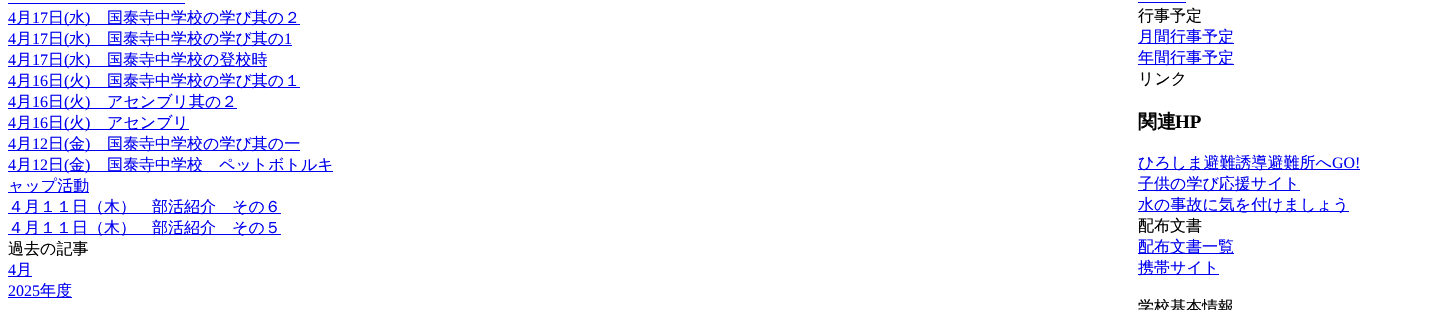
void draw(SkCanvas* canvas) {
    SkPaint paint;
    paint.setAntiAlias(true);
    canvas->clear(0xFFFFFFFF);
    paint.setColor(0xFF0000EE);
    canvas->drawRect(SkRect::MakeXYWH(8, 3, 177, 1), paint);
    SkFont font1(fontMgr->matchFamilyStyle("Liberation Serif", SkFontStyle::Normal()), 16);
    font1.setSubpixel(true);
    canvas->drawString("4", 8, 23, font1, paint);
    canvas->drawRect(SkRect::MakeXYWH(8, 24, 292, 1), paint);
    SkFont font2(fontMgr->matchFamilyStyle("WenQuanYi Zen Hei", SkFontStyle(500, SkFontStyle::kNormal_Width, SkFontStyle::kUpright_Slant)), 16);
    font2.setSubpixel(true);
    canvas->drawString("月", 16, 23, font2, paint);
    canvas->drawString("17", 32, 23, font1, paint);
    canvas->drawString("日", 48, 23, font2, paint);
    canvas->drawString("(", 64, 23, font1, paint);
    canvas->drawString("水", 69, 23, font2, paint);
    canvas->drawString(")", 85, 23, font1, paint);
    canvas->drawString("国泰寺中学校の学び其の２", 107, 23, font2, paint);
    canvas->drawString("4", 8, 44, font1, paint);
    canvas->drawRect(SkRect::MakeXYWH(8, 45, 284, 1), paint);
    canvas->drawString("月", 16, 44, font2, paint);
    canvas->drawString("17", 32, 44, font1, paint);
    canvas->drawString("日", 48, 44, font2, paint);
    canvas->drawString("(", 64, 44, font1, paint);
    canvas->drawString("水", 69, 44, font2, paint);
    canvas->drawString(")", 85, 44, font1, paint);
    canvas->drawString("国泰寺中学校の学び其の", 107, 44, font2, paint);
    canvas->drawString("1", 284, 44, font1, paint);
    canvas->drawString("4", 8, 65, font1, paint);
    canvas->drawRect(SkRect::MakeXYWH(8, 66, 259, 1), paint);
    canvas->drawString("月", 16, 65, font2, paint);
    canvas->drawString("17", 32, 65, font1, paint);
    canvas->drawString("日", 48, 65, font2, paint);
    canvas->drawString("(", 64, 65, font1, paint);
    canvas->drawString("水", 69, 65, font2, paint);
    canvas->drawString(")", 85, 65, font1, paint);
    canvas->drawString("国泰寺中学校の登校時", 107, 65, font2, paint);
    canvas->drawString("4", 8, 86, font1, paint);
    canvas->drawRect(SkRect::MakeXYWH(8, 87, 292, 1), paint);
    canvas->drawString("月", 16, 86, font2, paint);
    canvas->drawString("16", 32, 86, font1, paint);
    canvas->drawString("日", 48, 86, font2, paint);
    canvas->drawString("(", 64, 86, font1, paint);
    canvas->drawString("火", 69, 86, font2, paint);
    canvas->drawString(")", 85, 86, font1, paint);
    canvas->drawString("国泰寺中学校の学び其の１", 107, 86, font2, paint);
    canvas->drawString("4", 8, 107, font1, paint);
    canvas->drawRect(SkRect::MakeXYWH(8, 108, 229, 1), paint);
    canvas->drawString("月", 16, 107, font2, paint);
    canvas->drawString("16", 32, 107, font1, paint);
    canvas->drawString("日", 48, 107, font2, paint);
    canvas->drawString("(", 64, 107, font1, paint);
    canvas->drawString("火", 69, 107, font2, paint);
    canvas->drawString(")", 85, 107, font1, paint);
    canvas->drawString("アセンブリ其の２", 107, 107, font2, paint);
    canvas->drawString("4", 8, 128, font1, paint);
    canvas->drawRect(SkRect::MakeXYWH(8, 129, 181, 1), paint);
    canvas->drawString("月", 16, 128, font2, paint);
    canvas->drawString("16", 32, 128, font1, paint);
    canvas->drawString("日", 48, 128, font2, paint);
    canvas->drawString("(", 64, 128, font1, paint);
    canvas->drawString("火", 69, 128, font2, paint);
    canvas->drawString(")", 85, 128, font1, paint);
    canvas->drawString("アセンブリ", 107, 128, font2, paint);
    canvas->drawString("4", 8, 149, font1, paint);
    canvas->drawRect(SkRect::MakeXYWH(8, 150, 292, 1), paint);
    canvas->drawString("月", 16, 149, font2, paint);
    canvas->drawString("12", 32, 149, font1, paint);
    canvas->drawString("日", 48, 149, font2, paint);
    canvas->drawString("(", 64, 149, font1, paint);
    canvas->drawString("金", 69, 149, font2, paint);
    canvas->drawString(")", 85, 149, font1, paint);
    canvas->drawString("国泰寺中学校の学び其の一", 107, 149, font2, paint);
    canvas->drawString("4", 8, 170, font1, paint);
    canvas->drawRect(SkRect::MakeXYWH(8, 171, 325, 1), paint);
    canvas->drawString("月", 16, 170, font2, paint);
    canvas->drawString("12", 32, 170, font1, paint);
    canvas->drawString("日", 48, 170, font2, paint);
    canvas->drawString("(", 64, 170, font1, paint);
    canvas->drawString("金", 69, 170, font2, paint);
    canvas->drawString(")", 85, 170, font1, paint);
    canvas->drawString("国泰寺中学校　ペットボトルキ", 107, 170, font2, paint);
    canvas->drawRect(SkRect::MakeXYWH(8, 192, 81, 1), paint);
    canvas->drawString("ャップ活動", 8, 191, font2, paint);
    canvas->drawRect(SkRect::MakeXYWH(8, 213, 273, 1), paint);
    canvas->drawString("４月１１日（木）　部活紹介　その６", 8, 212, font2, paint);
    canvas->drawRect(SkRect::MakeXYWH(8, 234, 273, 1), paint);
    canvas->drawString("４月１１日（木）　部活紹介　その５", 8, 233, font2, paint);
    paint.setColor(0xFF000000);
    canvas->drawString("過去の記事", 8, 254, font2, paint);
    paint.setColor(0xFF0000EE);
    canvas->drawString("4", 8, 275, font1, paint);
    canvas->drawRect(SkRect::MakeXYWH(8, 276, 24, 1), paint);
    canvas->drawString("月", 16, 275, font2, paint);
    canvas->drawString("2025", 8, 296, font1, paint);
    canvas->drawRect(SkRect::MakeXYWH(8, 297, 64, 1), paint);
    canvas->drawString("年度", 40, 296, font2, paint);
    canvas->drawRect(SkRect::MakeXYWH(1138, 2, 48, 1), paint);
    paint.setColor(0xFF000000);
    canvas->drawString("行事予定", 1138, 21, font2, paint);
    paint.setColor(0xFF0000EE);
    canvas->drawRect(SkRect::MakeXYWH(1138, 43, 96, 1), paint);
    canvas->drawString("月間行事予定", 1138, 42, font2, paint);
    canvas->drawRect(SkRect::MakeXYWH(1138, 64, 96, 1), paint);
    canvas->drawString("年間行事予定", 1138, 63, font2, paint);
    paint.setColor(0xFF000000);
    canvas->drawString("リンク", 1138, 84, font2, paint);
    SkFont font3(fontMgr->matchFamilyStyle("WenQuanYi Zen Hei", SkFontStyle::Bold()), 19);
    font3.setSubpixel(true);
    canvas->drawString("関連", 1138, 128, font3, paint);
    SkFont font4(fontMgr->matchFamilyStyle("Liberation Serif", SkFontStyle::Bold()), 19);
    font4.setSubpixel(true);
    canvas->drawString("HP", 1175, 128, font4, paint);
    paint.setColor(0xFF0000EE);
    canvas->drawRect(SkRect::MakeXYWH(1138, 169, 222, 1), paint);
    canvas->drawString("ひろしま避難誘導避難所へ", 1138, 168, font2, paint);
    canvas->drawString("GO!", 1332, 168, font1, paint);
    canvas->drawRect(SkRect::MakeXYWH(1138, 190, 162, 1), paint);
    canvas->drawString("子供の学び応援サイト", 1138, 189, font2, paint);
    canvas->drawRect(SkRect::MakeXYWH(1138, 211, 211, 1), paint);
    canvas->drawString("水の事故に気を付けましょう", 1138, 210, font2, paint);
    paint.setColor(0xFF000000);
    canvas->drawString("配布文書", 1138, 231, font2, paint);
    paint.setColor(0xFF0000EE);
    canvas->drawRect(SkRect::MakeXYWH(1138, 253, 96, 1), paint);
    canvas->drawString("配布文書一覧", 1138, 252, font2, paint);
    canvas->drawRect(SkRect::MakeXYWH(1138, 274, 81, 1), paint);
    canvas->drawString("携帯サイト", 1138, 273, font2, paint);
    paint.setColor(0xFF000000);
    canvas->drawString("学校基本情報", 1138, 312, font2, paint);
}
